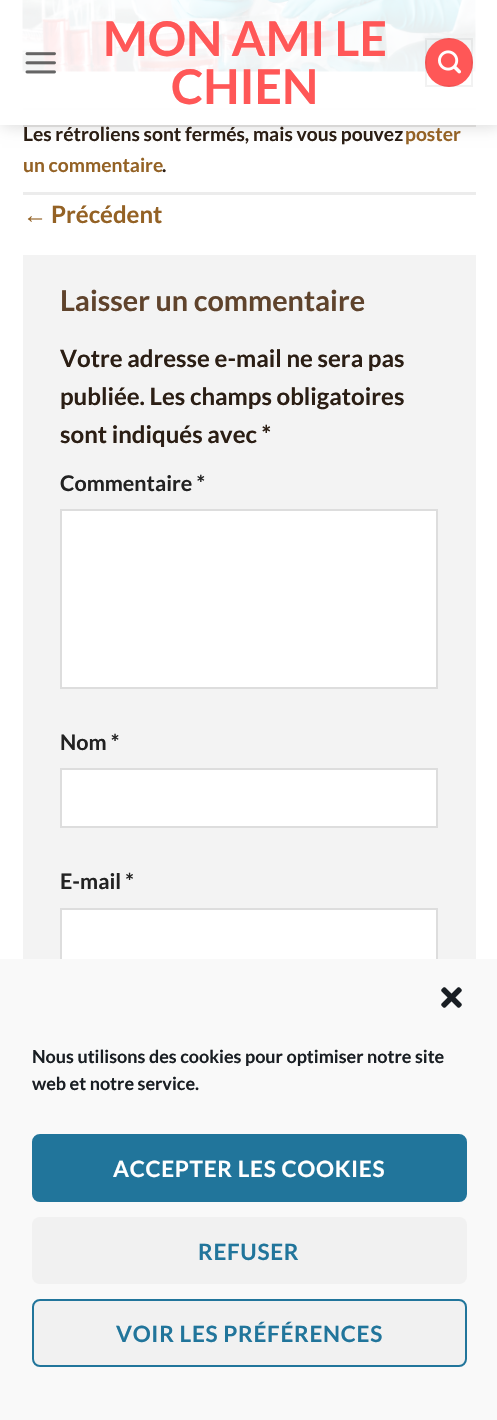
void draw(SkCanvas* canvas) {
    SkPaint paint;
    paint.setAntiAlias(true);
    auto spacedText = [&](const char* s, float x, float y, const SkFont& font, const SkPaint& ink, float letter, float word) {
        std::vector<SkGlyphID> glyphs(font.countText(s, strlen(s), SkTextEncoding::kUTF8));
        std::vector<float> xs(glyphs.size());
        font.textToGlyphs(s, strlen(s), SkTextEncoding::kUTF8, glyphs);
        font.getXPos(glyphs, xs, x);
        float extra = 0;
        for (size_t i = 0; i < glyphs.size(); i++) {
            xs[i] += extra;
            extra += letter + word * (glyphs[i] == font.unicharToGlyph(' '));
        }
        canvas->drawTextBlob(SkTextBlob::MakeFromPosHGlyphs(glyphs, xs, y, font), 0, 0, ink);
    };
    canvas->clear(0xFFFFFFFF);
    canvas->drawImageRect(SkImages::DeferredFromEncodedData(SkData::MakeFromFileName("img3.png")), SkRect::MakeXYWH(22, 0, 454, 72), SkSamplingOptions());
    paint.setColor(0xFFECECEC);
    canvas->drawRect(SkRect::MakeXYWH(23, 108, 453, 2), paint);
    canvas->save();
    canvas->clipPath(SkPathBuilder(SkPathFillType::kEvenOdd).moveTo(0, 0).lineTo(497, 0).lineTo(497, 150).lineTo(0, 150).close().moveTo(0, 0).lineTo(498, 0).lineTo(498, 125).lineTo(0, 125).close().detach(), true);
    paint.setColor(0x26000000);
    paint.setMaskFilter(SkMaskFilter::MakeBlur(kNormal_SkBlurStyle, 7.5f));
    canvas->drawRect(SkRect::MakeXYWH(2, 2, 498, 124), paint);
    paint.setMaskFilter(nullptr);
    canvas->restore();
    paint.setColor(0xE6FFFFFF);
    canvas->drawRect(SkRect::MakeXYWH(0, 0, 497, 125), paint);
    canvas->drawImageRect(SkImages::DeferredFromEncodedData(SkData::MakeFromFileName("img1.png")), SkRect::MakeXYWH(25, 52, 31, 22), SkSamplingOptions());
    SkFont font1(fontMgr->matchFamilyStyle("Lato", SkFontStyle::Bold()), 48);
    font1.setSubpixel(true);
    paint.setColor(0xFFFF5757);
    canvas->drawString("MON AMI LE", 103, 56, font1, paint);
    canvas->drawString("CHIEN", 171, 104, font1, paint);
    canvas->drawRoundRect(SkRect::MakeXYWH(425, 38, 48, 49), 24, 24, paint);
    paint.setStyle(SkPaint::kStroke_Style);
    paint.setStrokeWidth(2);
    paint.setColor(0x0D000000);
    canvas->drawRect(SkRect::MakeXYWH(426, 39, 46, 47), paint);
    canvas->drawImageRect(SkImages::DeferredFromEncodedData(SkData::MakeFromFileName("img2.png")), SkRect::MakeXYWH(438, 50, 23, 24), SkSamplingOptions());
    paint.setStyle(SkPaint::kFill_Style);
    paint.setColor(0x1A2B1E14);
    canvas->drawRect(SkRect::MakeXYWH(23, 125, 453, 2), paint);
    paint.setColor(0xFFECECEC);
    canvas->drawRect(SkRect::MakeXYWH(23, 192, 453, 3), paint);
    SkFont font2(fontMgr->matchFamilyStyle("Lato", SkFontStyle::Bold()), 19.25f);
    font2.setSubpixel(true);
    paint.setColor(0xFF2B1E14);
    canvas->drawString("Les rétroliens sont fermés, mais vous pouvez", 23, 141, font2, paint);
    paint.setColor(0xFF946225);
    canvas->drawString("poster", 405, 141, font2, paint);
    canvas->drawString("un commentaire", 23, 172, font2, paint);
    paint.setColor(0xFF2B1E14);
    canvas->drawString(".", 162, 172, font2, paint);
    SkFont font3(fontMgr->matchFamilyStyle("Liberation Sans", SkFontStyle::Normal()), 24);
    font3.setSubpixel(true);
    paint.setColor(0xFF946225);
    canvas->drawString("←", 23, 223, font3, paint);
    SkFont font4(fontMgr->matchFamilyStyle("Lato", SkFontStyle::Bold()), 24);
    font4.setSubpixel(true);
    canvas->drawString("Précédent", 51, 223, font4, paint);
    paint.setColor(0xFFF3F3F3);
    canvas->drawRect(SkRect::MakeXYWH(23, 255, 453, 704), paint);
    SkFont font5(fontMgr->matchFamilyStyle("Lato", SkFontStyle::Bold()), 28.75f);
    font5.setSubpixel(true);
    paint.setColor(0xFF5F432C);
    canvas->drawString("Laisser un commentaire", 60, 311, font5, paint);
    paint.setColor(0xFF2B1E14);
    canvas->drawString("Votre adresse e-mail ne sera pas", 60, 367, font4, paint);
    canvas->drawString("publiée. Les champs obligatoires", 60, 405, font4, paint);
    canvas->drawString("sont indiqués avec *", 60, 443, font4, paint);
    SkFont font6(fontMgr->matchFamilyStyle("Lato", SkFontStyle::Bold()), 21.5f);
    font6.setSubpixel(true);
    paint.setColor(0xFF222222);
    canvas->drawString("Commentaire *", 60, 491, font6, paint);
    paint.setColor(0xFFFFFFFF);
    canvas->drawRect(SkRect::MakeXYWH(61, 510, 376, 178), paint);
    paint.setStyle(SkPaint::kStroke_Style);
    paint.setColor(0xFFDDDDDD);
    canvas->drawRect(SkRect::MakeXYWH(61, 510, 376, 178), paint);
    paint.setStyle(SkPaint::kFill_Style);
    paint.setColor(0xFF222222);
    canvas->drawString("Nom *", 60, 750, font6, paint);
    paint.setColor(0xFFFFFFFF);
    canvas->drawRect(SkRect::MakeXYWH(61, 769, 376, 58), paint);
    paint.setStyle(SkPaint::kStroke_Style);
    paint.setColor(0xFFDDDDDD);
    canvas->drawRect(SkRect::MakeXYWH(61, 769, 376, 58), paint);
    paint.setStyle(SkPaint::kFill_Style);
    paint.setColor(0xFF222222);
    canvas->drawString("E-mail *", 60, 889, font6, paint);
    paint.setColor(0xFFFFFFFF);
    canvas->drawRect(SkRect::MakeXYWH(62, 910, 374, 49), paint);
    paint.setStyle(SkPaint::kStroke_Style);
    paint.setColor(0xFFDDDDDD);
    canvas->drawRect(SkRect::MakeXYWH(61, 909, 376, 58), paint);
    paint.setStyle(SkPaint::kFill_Style);
    paint.setColor(0xFFF9F9F9);
    canvas->drawRect(SkRect::MakeXYWH(0, 959, 497, 461), paint);
    canvas->drawImageRect(SkImages::DeferredFromEncodedData(SkData::MakeFromFileName("img4.png")), SkRect::MakeXYWH(441, 987, 21, 21), SkSamplingOptions());
    SkFont font7(fontMgr->matchFamilyStyle("Lato", SkFontStyle::Bold()), 18);
    font7.setSubpixel(true);
    paint.setColor(0xFF191E23);
    canvas->drawString("Nous utilisons des cookies pour optimiser notre site", 32, 1063, font7, paint);
    canvas->drawString("web et notre service.", 32, 1090, font7, paint);
    paint.setColor(0xFF21759B);
    canvas->drawRoundRect(SkRect::MakeXYWH(33, 1135, 433, 66), 7, 7, paint);
    paint.setStyle(SkPaint::kStroke_Style);
    canvas->drawRoundRect(SkRect::MakeXYWH(33, 1135, 433, 66), 7, 7, paint);
    SkFont font8(fontMgr->matchFamilyStyle("Lato", SkFontStyle::Bold()), 22.5f);
    font8.setSubpixel(true);
    paint.setStyle(SkPaint::kFill_Style);
    paint.setColor(0xFFFFFFFF);
    spacedText("ACCEPTER LES COOKIES", 113, 1177, font8, paint, 0.7f, 0);
    paint.setColor(0xFFF1F1F1);
    canvas->drawRoundRect(SkRect::MakeXYWH(32, 1217, 435, 67), 8, 8, paint);
    paint.setColor(0xFF21759B);
    spacedText("REFUSER", 198, 1260, font8, paint, 0.7f, 0);
    paint.setColor(0xFFF1F1F1);
    canvas->drawRoundRect(SkRect::MakeXYWH(33, 1300, 433, 66), 7, 7, paint);
    paint.setStyle(SkPaint::kStroke_Style);
    paint.setColor(0xFF21759B);
    canvas->drawRoundRect(SkRect::MakeXYWH(33, 1300, 433, 66), 7, 7, paint);
    paint.setStyle(SkPaint::kFill_Style);
    spacedText("VOIR LES PRÉFÉRENCES", 116, 1342, font8, paint, 0.7f, 0);
}
